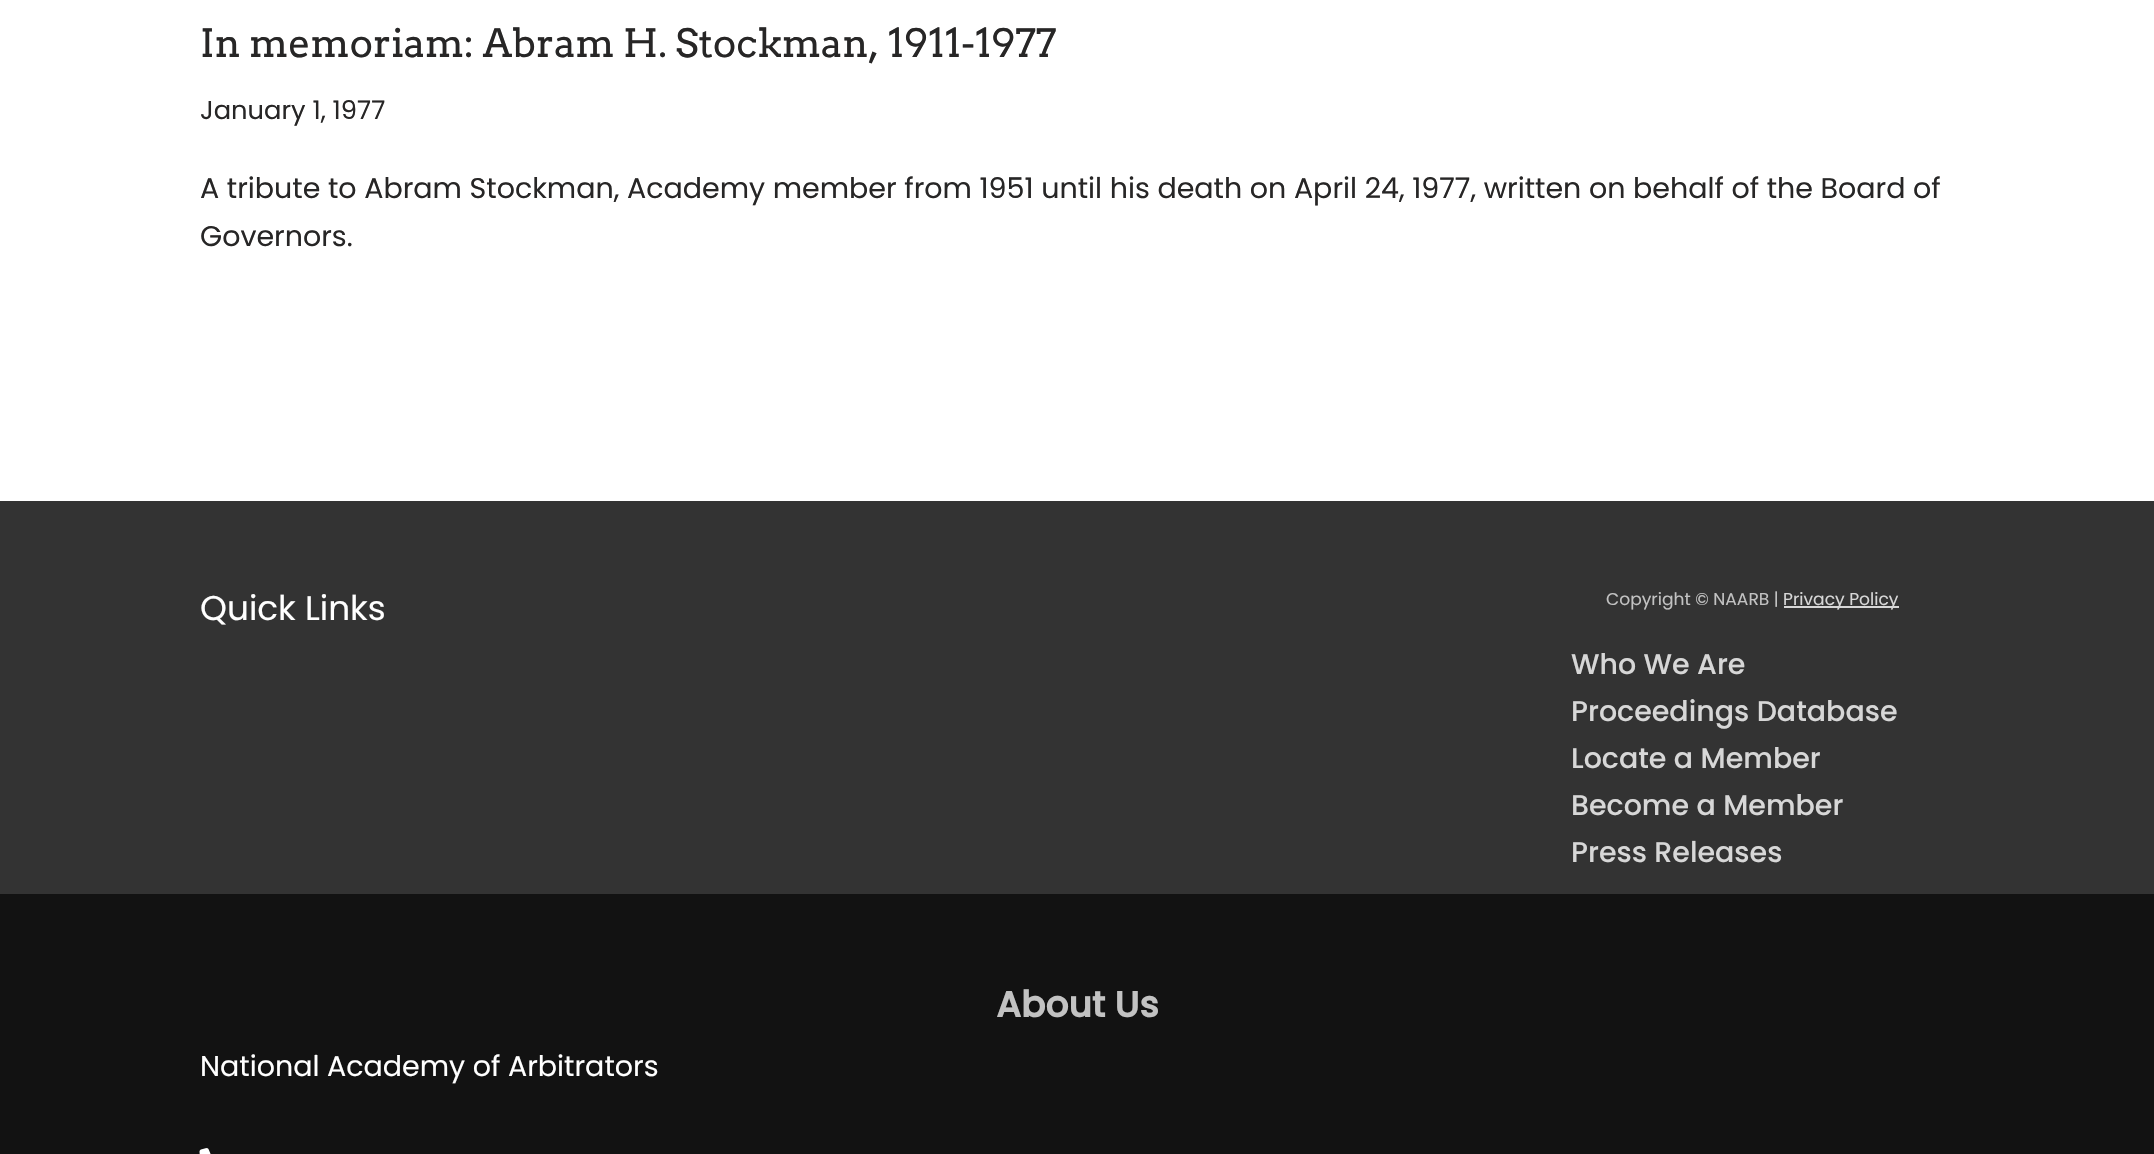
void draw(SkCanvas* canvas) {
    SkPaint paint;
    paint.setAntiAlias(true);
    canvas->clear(0xFFFFFFFF);
    SkFont font1(fontMgr->matchFamilyStyle("Arvo", SkFontStyle::Normal()), 39);
    font1.setSubpixel(true);
    paint.setColor(0xFF272626);
    canvas->drawString("In memoriam: Abram H. Stockman, 1911-1977", 200, 57, font1, paint);
    SkFont font2(fontMgr->matchFamilyStyle("Poppins", SkFontStyle::Normal()), 25.75f);
    font2.setSubpixel(true);
    canvas->drawString("January 1, 1977", 200, 119, font2, paint);
    SkFont font3(fontMgr->matchFamilyStyle("Poppins", SkFontStyle::Normal()), 28.5f);
    font3.setSubpixel(true);
    canvas->drawString("A tribute to Abram Stockman, Academy member from 1951 until his death on April 24, 1977, written on behalf of the Board of", 200, 198, font3, paint);
    canvas->drawString("Governors.", 200, 246, font3, paint);
    paint.setColor(0xFF333333);
    canvas->drawRect(SkRect::MakeXYWH(0, 501, 2154, 393), paint);
    SkFont font4(fontMgr->matchFamilyStyle("Poppins", SkFontStyle::Normal()), 34.25f);
    font4.setSubpixel(true);
    paint.setColor(0xFFFFFFFF);
    canvas->drawString("Quick Links", 200, 620, font4, paint);
    SkFont font5(fontMgr->matchFamilyStyle("Poppins", SkFontStyle::Normal()), 17.1f);
    font5.setSubpixel(true);
    paint.setColor(0xFFC2C2C2);
    canvas->drawString("Copyright © NAARB |", 1606, 605, font5, paint);
    paint.setColor(0xFFD7D7D7);
    canvas->drawRect(SkRect::MakeXYWH(1784, 606, 115, 2), paint);
    canvas->drawString("Privacy Policy", 1783, 605, font5, paint);
    SkFont font6(fontMgr->matchFamilyStyle("Poppins", SkFontStyle(500, SkFontStyle::kNormal_Width, SkFontStyle::kUpright_Slant)), 28.5f);
    font6.setSubpixel(true);
    canvas->drawString("Who We Are", 1571, 674, font6, paint);
    canvas->drawString("Proceedings Database", 1571, 721, font6, paint);
    canvas->drawString("Locate a Member", 1571, 768, font6, paint);
    canvas->drawString("Become a Member", 1571, 815, font6, paint);
    canvas->drawString("Press Releases", 1571, 862, font6, paint);
    paint.setColor(0xFF121212);
    canvas->drawRect(SkRect::MakeXYWH(0, 894, 2154, 260), paint);
    SkFont font7(fontMgr->matchFamilyStyle("Poppins", SkFontStyle::Bold()), 36);
    font7.setSubpixel(true);
    paint.setColor(0xFFC2C2C2);
    canvas->drawString("About Us", 996, 1017, font7, paint);
    paint.setColor(0xFFFFFFFF);
    canvas->drawString("National Academy of Arbitrators", 200, 1076, font3, paint);
    canvas->drawImageRect(SkImages::DeferredFromEncodedData(SkData::MakeFromFileName("img1.png")), SkRect::MakeXYWH(199, 1148, 12, 6), SkSamplingOptions());
}
